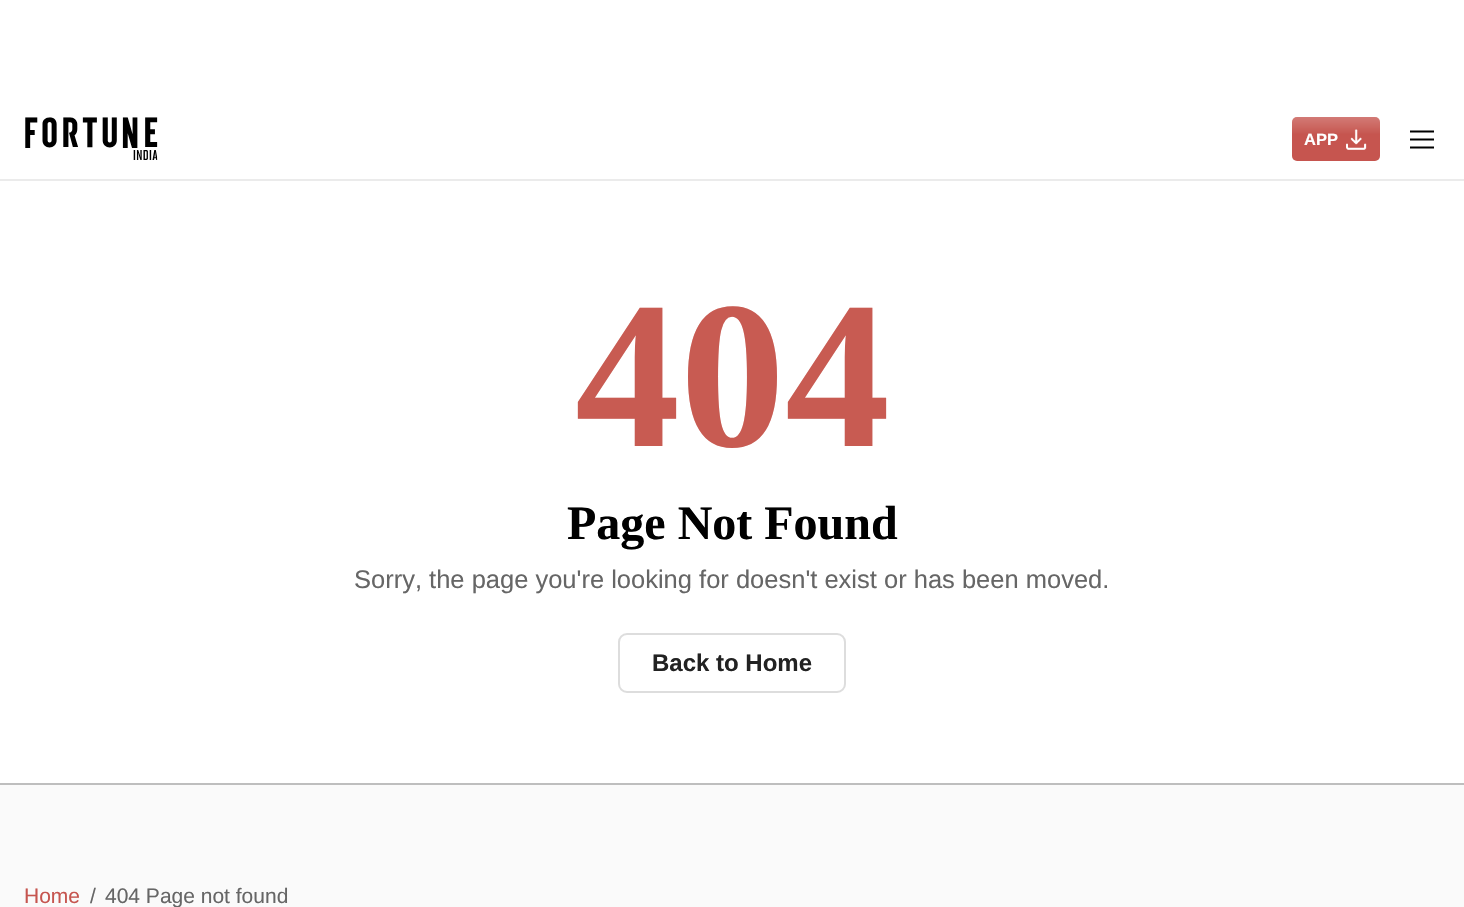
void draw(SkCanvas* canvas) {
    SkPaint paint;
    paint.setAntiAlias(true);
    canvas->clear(0xFFFFFFFF);
    paint.setColor(0x14000000);
    canvas->drawRect(SkRect::MakeXYWH(0, 179, 1464, 2), paint);
    canvas->drawImageRect(SkImages::DeferredFromEncodedData(SkData::MakeFromFileName("img1.png")), SkRect::MakeXYWH(25, 117, 133, 43), SkSamplingOptions());
    paint.setColor(0xFFC6554F);
    canvas->drawRoundRect(SkRect::MakeXYWH(1292, 117, 88, 44), 5, 5, paint);
    canvas->drawImageRect(SkImages::DeferredFromEncodedData(SkData::MakeFromFileName("img2.png")), SkRect::MakeXYWH(1346, 129, 21, 21), SkSamplingOptions());
    {
        const SkColor colors[] = {0x38FFFFFF, 0x00FFFFFF};
        const float stops[] = {0, 0.4f};
        const SkPoint ends[] = {{1336, 117}, {1336, 161}};
        paint.setShader(SkGradientShader::MakeLinear(ends, colors, stops, 2, SkTileMode::kClamp));
        paint.setAlpha(255);
    }
    canvas->drawRoundRect(SkRect::MakeXYWH(1292, 117, 88, 44), 5, 5, paint);
    SkFont font1(fontMgr->matchFamilyStyle("Liberation Sans", SkFontStyle::Bold()), 16.5f);
    font1.setSubpixel(true);
    paint.setShader(nullptr);
    paint.setColor(0xFFFFFFFF);
    canvas->drawString("APP", 1304, 145, font1, paint);
    canvas->drawImageRect(SkImages::DeferredFromEncodedData(SkData::MakeFromFileName("img3.png")), SkRect::MakeXYWH(1410, 130, 24, 19), SkSamplingOptions());
    SkFont font2(fontMgr->matchFamilyStyle("Liberation Serif", SkFontStyle::Bold()), 210);
    font2.setSubpixel(true);
    paint.setColor(0xFFC85B52);
    canvas->drawString("404", 575, 446, font2, paint);
    SkFont font3(fontMgr->matchFamilyStyle("Liberation Serif", SkFontStyle::Bold()), 48);
    font3.setSubpixel(true);
    paint.setColor(0xFF000000);
    canvas->drawString("Page Not Found", 567, 539, font3, paint);
    SkFont font4(fontMgr->matchFamilyStyle("Liberation Sans", SkFontStyle::Normal()), 25.5f);
    font4.setSubpixel(true);
    paint.setColor(0xFF666666);
    canvas->drawString("Sorry, the page you're looking for doesn't exist or has been moved.", 354, 588, font4, paint);
    paint.setStyle(SkPaint::kStroke_Style);
    paint.setStrokeWidth(2);
    paint.setColor(0xFFDDDDDD);
    canvas->drawRoundRect(SkRect::MakeXYWH(619, 634, 226, 58), 8, 8, paint);
    SkFont font5(fontMgr->matchFamilyStyle("Liberation Sans", SkFontStyle::Bold()), 24);
    font5.setSubpixel(true);
    paint.setStyle(SkPaint::kFill_Style);
    paint.setColor(0xFF222222);
    canvas->drawString("Back to Home", 652, 671, font5, paint);
    paint.setColor(0xFFFAFAFA);
    canvas->drawRect(SkRect::MakeXYWH(0, 785, 1464, 122), paint);
    paint.setColor(0xFFBEBEBE);
    canvas->drawRect(SkRect::MakeXYWH(0, 783, 1464, 2), paint);
    SkFont font6(fontMgr->matchFamilyStyle("Liberation Sans", SkFontStyle::Normal()), 21);
    font6.setSubpixel(true);
    paint.setColor(0xFFC6554F);
    canvas->drawString("Home", 24, 903, font6, paint);
    paint.setColor(0xFF666666);
    canvas->drawString("/", 90, 903, font6, paint);
    canvas->drawString("404 Page not found", 105, 903, font6, paint);
}
